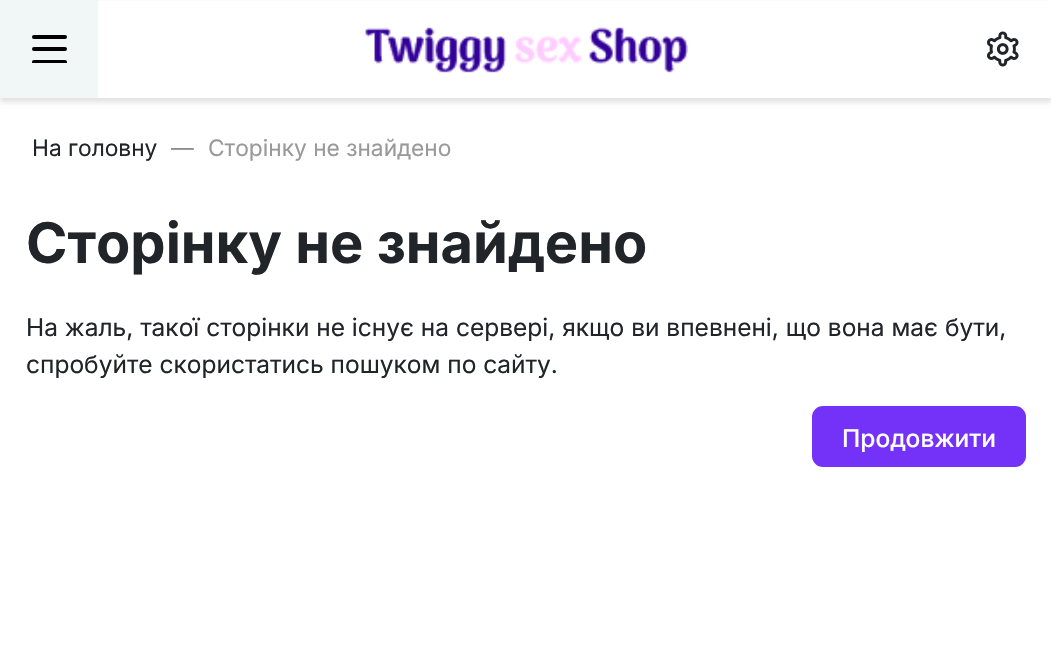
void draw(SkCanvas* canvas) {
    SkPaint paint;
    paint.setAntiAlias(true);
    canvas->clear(0xFFFFFFFF);
    paint.setColor(0x0F000000);
    paint.setMaskFilter(SkMaskFilter::MakeBlur(kNormal_SkBlurStyle, 2.5f));
    canvas->drawRect(SkRect::MakeXYWH(0, 4, 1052, 98), paint);
    paint.setMaskFilter(nullptr);
    paint.setMaskFilter(SkMaskFilter::MakeBlur(kNormal_SkBlurStyle, 2.5f));
    canvas->drawRect(SkRect::MakeXYWH(0, 4, 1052, 98), paint);
    paint.setMaskFilter(nullptr);
    paint.setColor(0xFFFFFFFF);
    canvas->drawRect(SkRect::MakeXYWH(98, 1, 953, 97), paint);
    paint.setColor(0xFFF1F6F7);
    canvas->drawRect(SkRect::MakeXYWH(0, 0, 98, 98), paint);
    paint.setColor(0xFF000000);
    canvas->drawRoundRect(SkRect::MakeXYWH(32, 35, 35, 4), 2, 2, paint);
    canvas->drawRoundRect(SkRect::MakeXYWH(32, 47, 35, 4), 2, 2, paint);
    canvas->save();
    canvas->clipRect(SkRect::MakeXYWH(32, 35, 35, 28));
    canvas->drawRoundRect(SkRect::MakeXYWH(32, 60, 35, 4), 2, 2, paint);
    canvas->restore();
    canvas->drawImageRect(SkImages::DeferredFromEncodedData(SkData::MakeFromFileName("img1.png")), SkRect::MakeXYWH(365, 27, 323, 46), SkSamplingOptions());
    canvas->drawImageRect(SkImages::DeferredFromEncodedData(SkData::MakeFromFileName("img2.png")), SkRect::MakeXYWH(987, 31, 32, 36), SkSamplingOptions());
    SkFont font1(fontMgr->matchFamilyStyle("Inter", SkFontStyle::Normal()), 22.75f);
    font1.setSubpixel(true);
    paint.setColor(0xFF212529);
    canvas->drawString("На головну", 32, 156, font1, paint);
    paint.setColor(0xFF8E8E93);
    canvas->drawString("—", 171, 156, font1, paint);
    paint.setColor(0xFF999999);
    canvas->drawString("Сторінку не знайдено", 208, 156, font1, paint);
    SkFont font2(fontMgr->matchFamilyStyle("Inter", SkFontStyle::Bold()), 56);
    font2.setSubpixel(true);
    paint.setColor(0xFF212529);
    canvas->drawString("Сторінку не знайдено", 26, 263, font2, paint);
    SkFont font3(fontMgr->matchFamilyStyle("Inter", SkFontStyle::Normal()), 24.5f);
    font3.setSubpixel(true);
    canvas->drawString("На жаль, такої сторінки не існує на сервері, якщо ви впевнені, що вона має бути,", 26, 336, font3, paint);
    canvas->drawString("спробуйте скористатись пошуком по сайту.", 26, 373, font3, paint);
    paint.setColor(0xFF7431F8);
    canvas->drawRoundRect(SkRect::MakeXYWH(813, 407, 212, 59), 10, 10, paint);
    paint.setStyle(SkPaint::kStroke_Style);
    paint.setStrokeWidth(2);
    canvas->drawRoundRect(SkRect::MakeXYWH(813, 407, 212, 59), 10, 10, paint);
    SkFont font4(fontMgr->matchFamilyStyle("Inter", SkFontStyle(500, SkFontStyle::kNormal_Width, SkFontStyle::kUpright_Slant)), 24.5f);
    font4.setSubpixel(true);
    paint.setStyle(SkPaint::kFill_Style);
    paint.setColor(0xFFFFFFFF);
    canvas->drawString("Продовжити", 842, 447, font4, paint);
}
